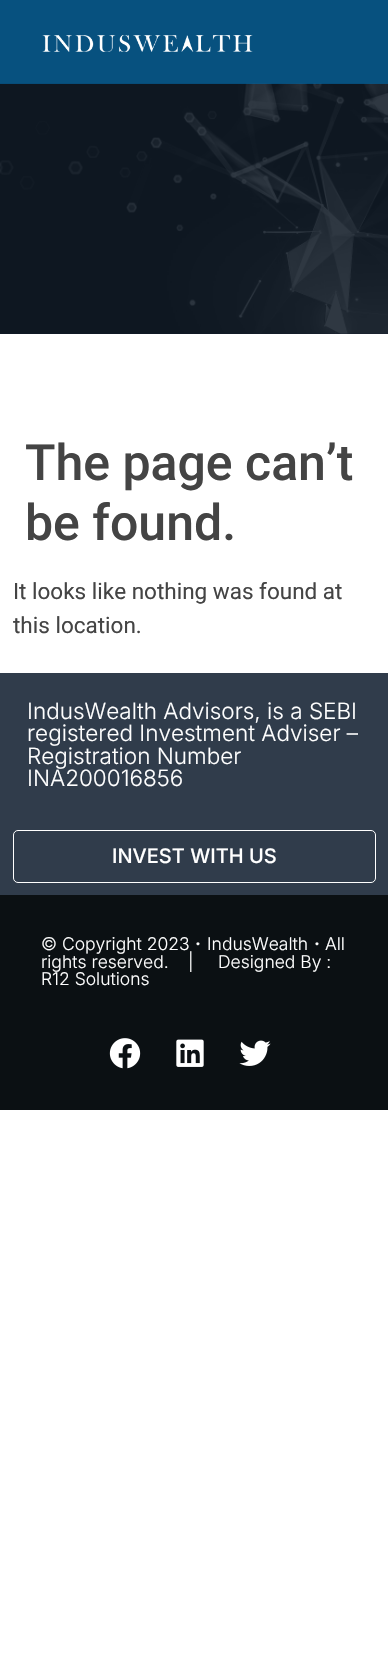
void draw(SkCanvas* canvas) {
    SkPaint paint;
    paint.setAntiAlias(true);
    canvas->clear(0xFFFFFFFF);
    paint.setColor(0xFF07517F);
    canvas->drawRect(SkRect::MakeXYWH(0, 0, 388, 84), paint);
    canvas->drawImageRect(SkImages::DeferredFromEncodedData(SkData::MakeFromFileName("img1.png")), SkRect::MakeXYWH(42, 35, 211, 17), SkSamplingOptions());
    paint.setColor(0xFF121D2B);
    canvas->drawRect(SkRect::MakeXYWH(0, 84, 388, 250), paint);
    canvas->drawImageRect(SkImages::DeferredFromEncodedData(SkData::MakeFromFileName("img2.png")), SkRect::MakeXYWH(0, 83, 388, 251), SkSamplingOptions());
    SkFont font1(fontMgr->matchFamilyStyle("Roboto", SkFontStyle(500, SkFontStyle::kNormal_Width, SkFontStyle::kUpright_Slant)), 50);
    font1.setSubpixel(true);
    paint.setColor(0xFF444444);
    canvas->drawString("The page can’t", 25, 480, font1, paint);
    canvas->drawString("be found.", 25, 540, font1, paint);
    SkFont font2(fontMgr->matchFamilyStyle("Roboto", SkFontStyle::Normal()), 22.5f);
    font2.setSubpixel(true);
    canvas->drawString("It looks like nothing was found at", 13, 599, font2, paint);
    canvas->drawString("this location.", 13, 633, font2, paint);
    paint.setColor(0xFF303C4B);
    canvas->drawRect(SkRect::MakeXYWH(0, 673, 388, 222), paint);
    SkFont font3(fontMgr->matchFamilyStyle("Inter", SkFontStyle(300, SkFontStyle::kNormal_Width, SkFontStyle::kUpright_Slant)), 22.5f);
    font3.setSubpixel(true);
    paint.setColor(0xFFFFFFFF);
    canvas->drawString("IndusWealth Advisors, is a SEBI", 27, 719, font3, paint);
    canvas->drawString("registered Investment Adviser –", 27, 741, font3, paint);
    canvas->drawString("Registration Number", 27, 764, font3, paint);
    canvas->drawString("INA200016856", 27, 786, font3, paint);
    paint.setStyle(SkPaint::kStroke_Style);
    paint.setStrokeWidth(1);
    canvas->drawRoundRect(SkRect::MakeXYWH(13.5f, 830.5f, 362, 52), 4.5f, 4.5f, paint);
    SkFont font4(fontMgr->matchFamilyStyle("Inter", SkFontStyle(500, SkFontStyle::kNormal_Width, SkFontStyle::kUpright_Slant)), 20);
    font4.setSubpixel(true);
    paint.setStyle(SkPaint::kFill_Style);
    canvas->drawString("INVEST WITH US", 112, 863, font4, paint);
    paint.setColor(0xFF0B1013);
    canvas->drawRect(SkRect::MakeXYWH(0, 895, 388, 215), paint);
    SkFont font5(fontMgr->matchFamilyStyle("Inter", SkFontStyle(300, SkFontStyle::kNormal_Width, SkFontStyle::kUpright_Slant)), 17.5f);
    font5.setSubpixel(true);
    paint.setColor(0xFFFFFFFF);
    canvas->drawString("© Copyright 2023", 41, 950, font5, paint);
    SkFont font6(fontMgr->matchFamilyStyle("WenQuanYi Zen Hei", SkFontStyle(500, SkFontStyle::kNormal_Width, SkFontStyle::kUpright_Slant)), 17.5f);
    font6.setSubpixel(true);
    canvas->drawString("・", 189, 950, font6, paint);
    canvas->drawString("IndusWealth", 207, 950, font5, paint);
    canvas->drawString("・", 308, 950, font6, paint);
    canvas->drawString("All", 325, 950, font5, paint);
    canvas->drawString("rights reserved.", 41, 968, font5, paint);
    canvas->drawString("|", 188, 968, font5, paint);
    canvas->drawString("Designed By :", 218, 968, font5, paint);
    canvas->drawString("R12 Solutions", 41, 985, font5, paint);
    canvas->drawImageRect(SkImages::DeferredFromEncodedData(SkData::MakeFromFileName("img3.png")), SkRect::MakeXYWH(109, 1038, 32, 31), SkSamplingOptions());
    canvas->drawImageRect(SkImages::DeferredFromEncodedData(SkData::MakeFromFileName("img4.png")), SkRect::MakeXYWH(176, 1039, 28, 28), SkSamplingOptions());
    canvas->drawImageRect(SkImages::DeferredFromEncodedData(SkData::MakeFromFileName("img5.png")), SkRect::MakeXYWH(239, 1040, 32, 26), SkSamplingOptions());
}
